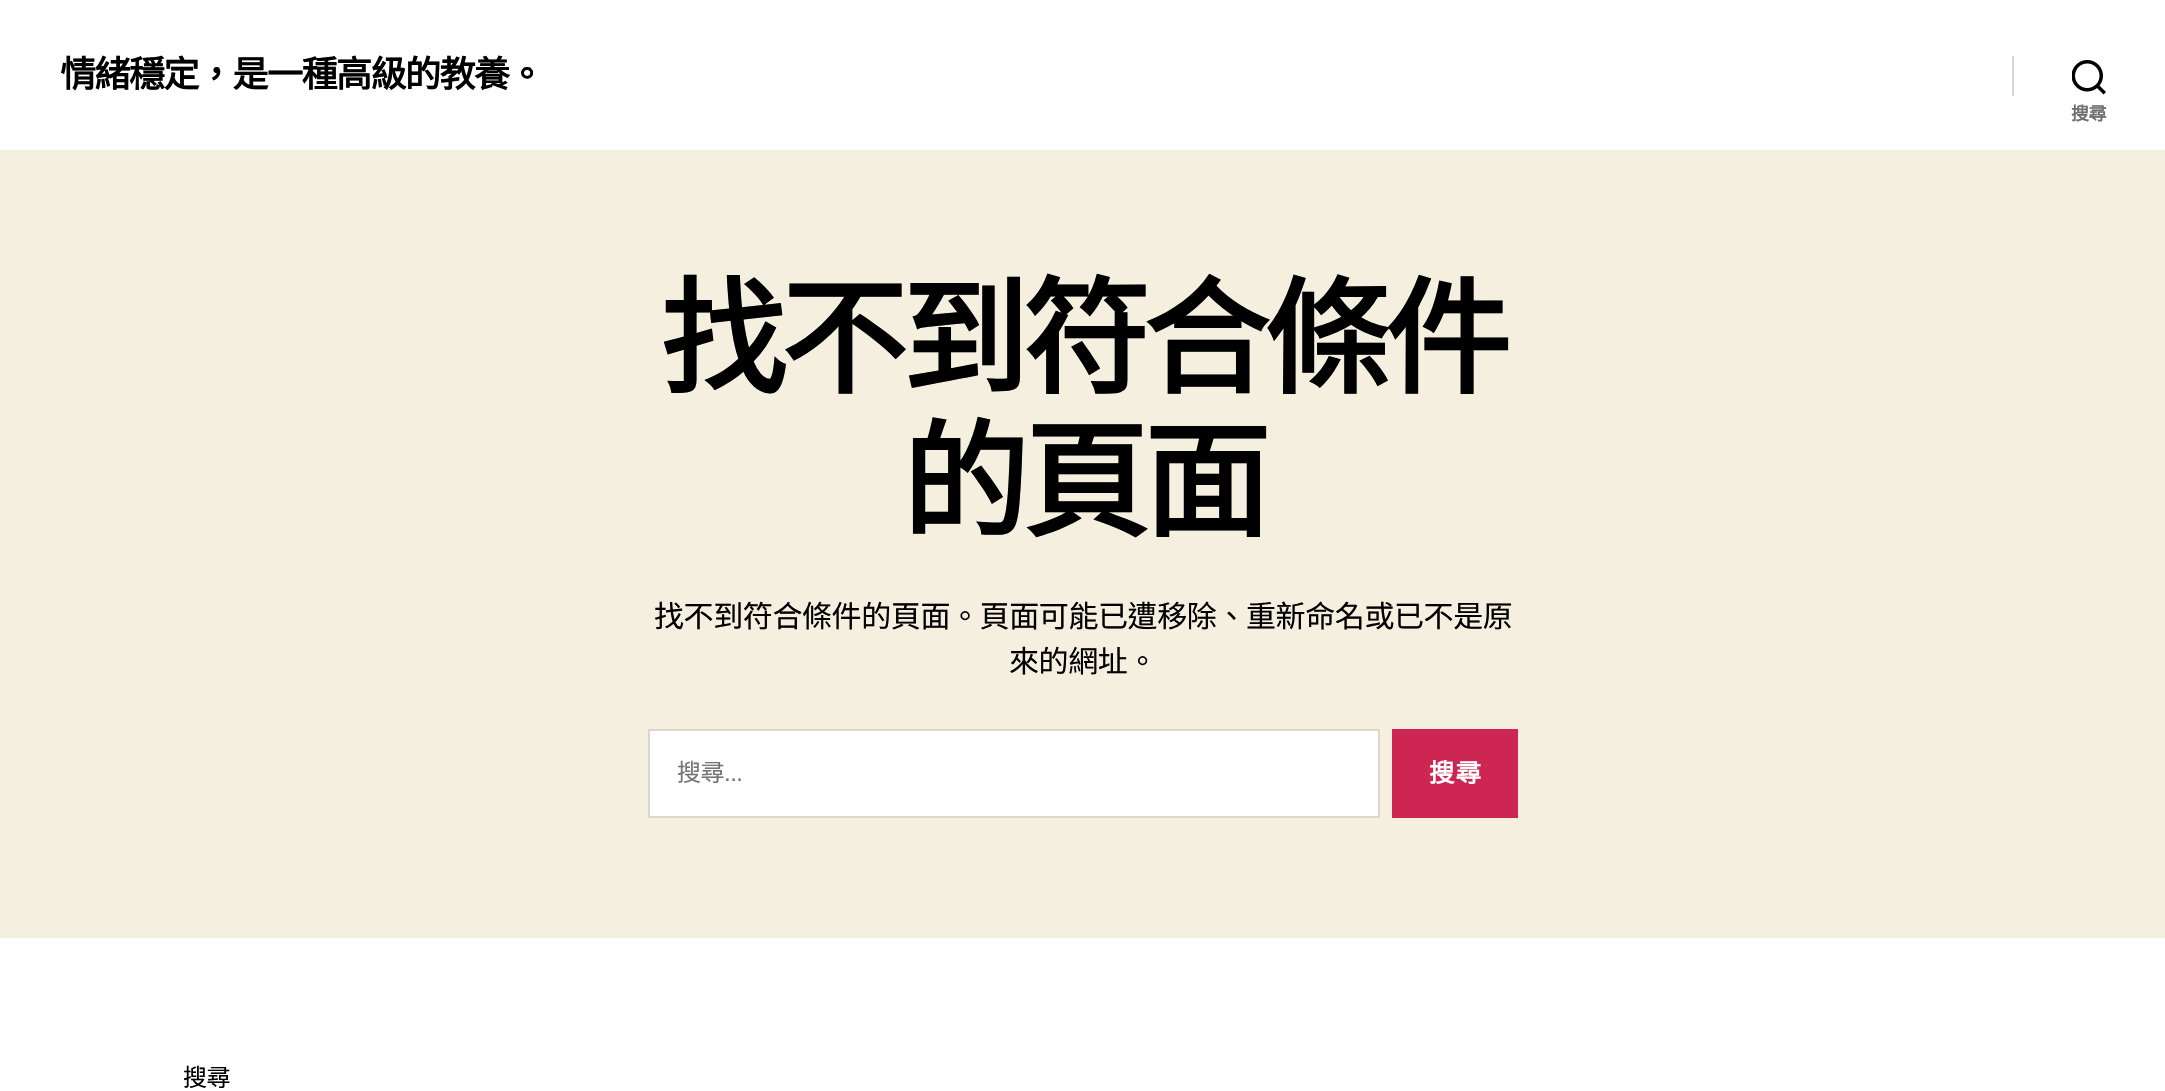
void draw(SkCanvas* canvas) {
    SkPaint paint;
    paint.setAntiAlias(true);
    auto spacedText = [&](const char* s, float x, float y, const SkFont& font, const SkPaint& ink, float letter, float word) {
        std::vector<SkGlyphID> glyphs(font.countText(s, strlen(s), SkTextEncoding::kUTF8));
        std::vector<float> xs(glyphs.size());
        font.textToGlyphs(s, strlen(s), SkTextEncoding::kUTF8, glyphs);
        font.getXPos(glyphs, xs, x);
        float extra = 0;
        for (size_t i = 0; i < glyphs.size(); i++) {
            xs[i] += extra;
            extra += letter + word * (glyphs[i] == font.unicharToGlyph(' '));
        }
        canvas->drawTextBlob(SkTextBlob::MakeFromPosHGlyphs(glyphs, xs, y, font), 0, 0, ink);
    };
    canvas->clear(0xFFF5EFE0);
    paint.setColor(0xFFFFFFFF);
    canvas->drawRect(SkRect::MakeXYWH(0, 0, 2165, 150), paint);
    SkFont font1(fontMgr->matchFamilyStyle("Noto Sans CJK TC", SkFontStyle::Bold()), 36);
    font1.setSubpixel(true);
    paint.setColor(0xFF000000);
    spacedText("情緒穩定，是一種高級的教養。", 60, 87, font1, paint, -1.5f, 0);
    paint.setColor(0xFFDCD7CA);
    canvas->drawRect(SkRect::MakeXYWH(2012, 56, 2, 40), paint);
    canvas->drawImageRect(SkImages::DeferredFromEncodedData(SkData::MakeFromFileName("img1.png")), SkRect::MakeXYWH(2072, 60, 34, 35), SkSamplingOptions());
    SkFont font2(fontMgr->matchFamilyStyle("Noto Sans CJK TC", SkFontStyle::Bold()), 18);
    font2.setSubpixel(true);
    paint.setColor(0xFF6D6D6D);
    spacedText("搜尋", 2071, 120, font2, paint, -0.4f, 0);
    SkFont font3(fontMgr->matchFamilyStyle("Noto Sans CJK TC", SkFontStyle::Bold()), 126);
    font3.setSubpixel(true);
    paint.setColor(0xFF000000);
    spacedText("找不到符合條件", 660, 384, font3, paint, -5.25f, 0);
    spacedText("的頁面", 902, 527, font3, paint, -5.25f, 0);
    SkFont font4(fontMgr->matchFamilyStyle("Noto Sans CJK TC", SkFontStyle::Normal()), 30);
    font4.setSubpixel(true);
    spacedText("找不到符合條件的頁面。頁面可能已遭移除、重新命名或已不是原", 654, 627, font4, paint, -0.4f, 0);
    spacedText("來的網址。", 1009, 672, font4, paint, -0.4f, 0);
    paint.setColor(0xFFFFFFFF);
    canvas->drawRect(SkRect::MakeXYWH(649, 730, 730, 87), paint);
    paint.setStyle(SkPaint::kStroke_Style);
    paint.setStrokeWidth(2);
    paint.setColor(0xFFDCD7CA);
    canvas->drawRect(SkRect::MakeXYWH(649, 730, 730, 87), paint);
    SkFont font5(fontMgr->matchFamilyStyle("Noto Sans CJK TC", SkFontStyle::Normal()), 24);
    font5.setSubpixel(true);
    paint.setStyle(SkPaint::kFill_Style);
    paint.setColor(0xFF757575);
    spacedText("搜尋", 677, 781, font5, paint, -0.5f, 0);
    SkFont font6(fontMgr->matchFamilyStyle("Liberation Sans", SkFontStyle::Normal()), 24);
    font6.setSubpixel(true);
    spacedText("...", 724, 781, font6, paint, -0.5f, 0);
    paint.setColor(0xFFCD2653);
    canvas->drawRect(SkRect::MakeXYWH(1392, 729, 126, 89), paint);
    SkFont font7(fontMgr->matchFamilyStyle("Noto Sans CJK TC", SkFontStyle::Bold()), 25.5f);
    font7.setSubpixel(true);
    paint.setColor(0xFFFFFFFF);
    spacedText("搜尋", 1429, 782, font7, paint, 1, 0);
    canvas->drawRect(SkRect::MakeXYWH(0, 938, 2165, 153), paint);
    paint.setColor(0xFF000000);
    spacedText("搜尋", 183, 1086, font5, paint, -0.4f, 0);
}
